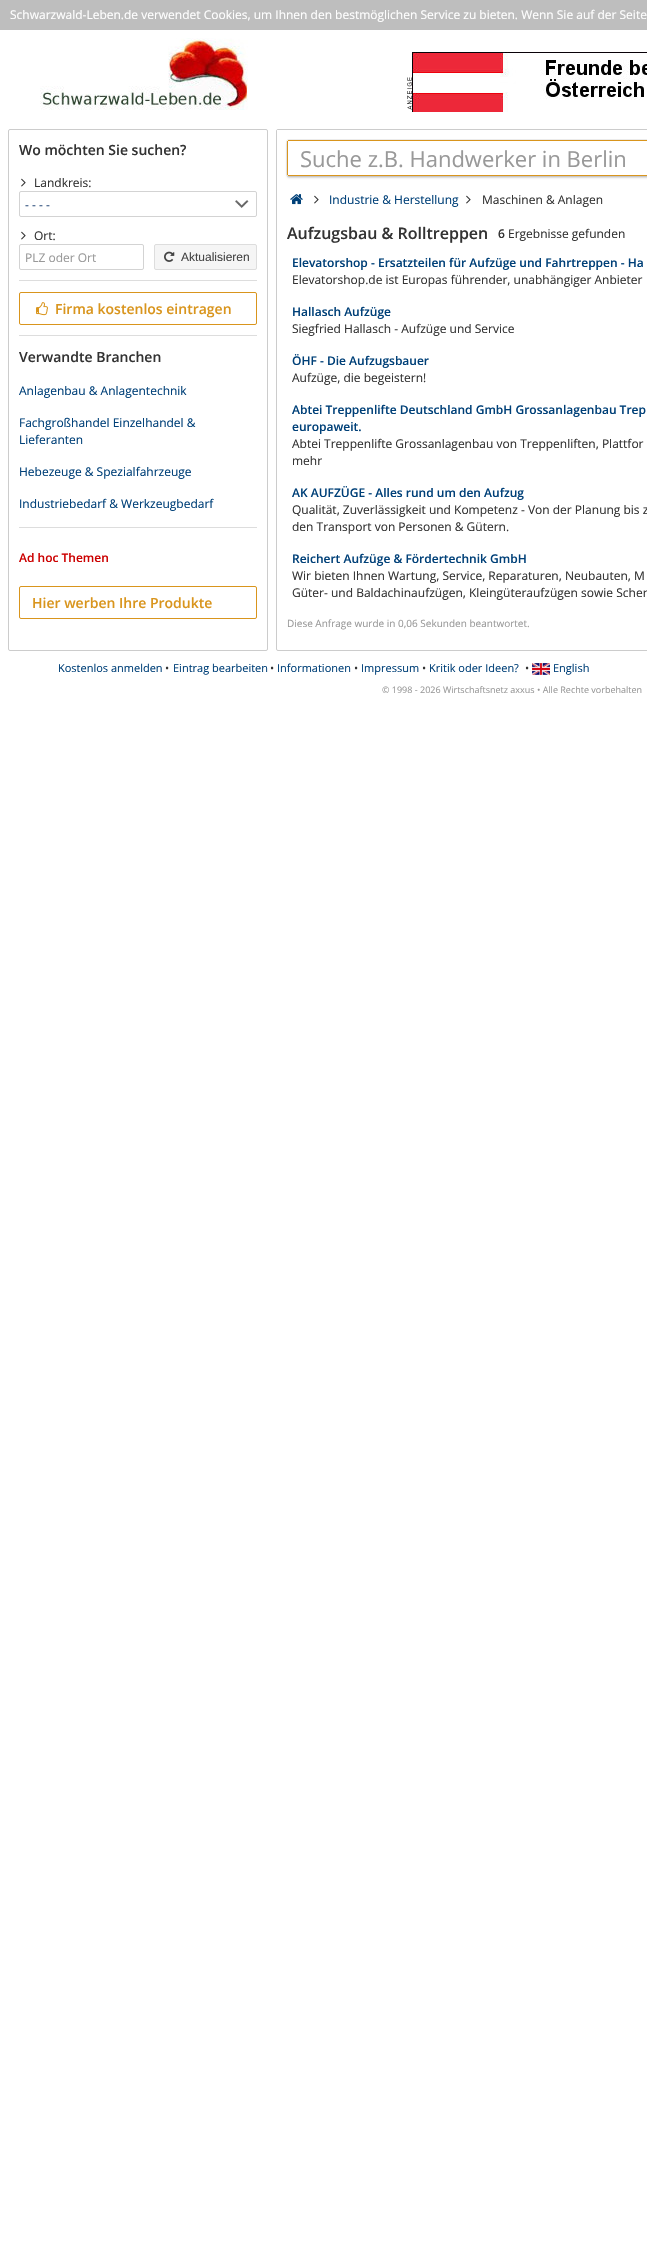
void draw(SkCanvas* canvas) {
    SkPaint paint;
    paint.setAntiAlias(true);
    canvas->clear(0xFFFFFFFF);
    paint.setColor(0xFFBEBEBE);
    canvas->drawRect(SkRect::MakeXYWH(0, 0, 647, 30), paint);
    SkFont font1(fontMgr->matchFamilyStyle("Open Sans", SkFontStyle::Normal()), 12);
    font1.setSubpixel(true);
    paint.setColor(0xFFFFFFFF);
    canvas->drawString("Schwarzwald-Leben.de verwendet Cookies, um Ihnen den bestmöglichen Service zu bieten. Wenn Sie auf der Seite", 10, 19, font1, paint);
    canvas->drawImageRect(SkImages::DeferredFromEncodedData(SkData::MakeFromFileName("img1.png")), SkRect::MakeXYWH(40, 38, 208, 72), SkSamplingOptions());
    canvas->drawImageRect(SkImages::DeferredFromEncodedData(SkData::MakeFromFileName("img2.png")), SkRect::MakeXYWH(407, 77, 5, 33), SkSamplingOptions());
    canvas->drawImageRect(SkImages::DeferredFromEncodedData(SkData::MakeFromFileName("img3.png")), SkRect::MakeXYWH(412, 52, 235, 60), SkSamplingOptions());
    paint.setStyle(SkPaint::kStroke_Style);
    paint.setStrokeWidth(1);
    paint.setColor(0xFFCCCCCC);
    canvas->drawRoundRect(SkRect::MakeXYWH(8.5f, 129.5f, 259, 521), 1.5f, 1.5f, paint);
    SkFont font2(fontMgr->matchFamilyStyle("Open Sans", SkFontStyle(600, SkFontStyle::kNormal_Width, SkFontStyle::kUpright_Slant)), 14);
    font2.setSubpixel(true);
    paint.setStyle(SkPaint::kFill_Style);
    paint.setColor(0xFF333333);
    canvas->drawString("Wo möchten Sie suchen?", 19, 155, font2, paint);
    canvas->drawImageRect(SkImages::DeferredFromEncodedData(SkData::MakeFromFileName("img4.png")), SkRect::MakeXYWH(21, 178, 5, 9), SkSamplingOptions());
    canvas->drawString("Landkreis:", 34, 187, font1, paint);
    canvas->drawImageRect(SkImages::DeferredFromEncodedData(SkData::MakeFromFileName("img5.png")), SkRect::MakeXYWH(235, 200, 14, 8), SkSamplingOptions());
    paint.setStyle(SkPaint::kStroke_Style);
    paint.setColor(0xFFD3D3D3);
    canvas->drawRoundRect(SkRect::MakeXYWH(19.5f, 191.5f, 237, 25), 1.5f, 1.5f, paint);
    paint.setStyle(SkPaint::kFill_Style);
    paint.setColor(0xFF204475);
    canvas->drawString("- - - -", 25, 209, font1, paint);
    canvas->drawImageRect(SkImages::DeferredFromEncodedData(SkData::MakeFromFileName("img4.png")), SkRect::MakeXYWH(21, 231, 5, 9), SkSamplingOptions());
    paint.setColor(0xFF333333);
    canvas->drawString("Ort:", 34, 240, font1, paint);
    paint.setStyle(SkPaint::kStroke_Style);
    paint.setColor(0xFFD3D3D3);
    canvas->drawRoundRect(SkRect::MakeXYWH(19.5f, 244.5f, 124, 25), 1.5f, 1.5f, paint);
    paint.setStyle(SkPaint::kFill_Style);
    paint.setColor(0xFF999999);
    canvas->drawString("PLZ oder Ort", 25, 262, font1, paint);
    paint.setColor(0xFFF5F5F5);
    canvas->drawRoundRect(SkRect::MakeXYWH(154.5f, 244.5f, 102, 25), 1.5f, 1.5f, paint);
    paint.setStyle(SkPaint::kStroke_Style);
    paint.setColor(0xFFDDDDDD);
    canvas->drawRoundRect(SkRect::MakeXYWH(154.5f, 244.5f, 102, 25), 1.5f, 1.5f, paint);
    canvas->drawImageRect(SkImages::DeferredFromEncodedData(SkData::MakeFromFileName("img6.png")), SkRect::MakeXYWH(164, 251, 11, 11), SkSamplingOptions());
    SkFont font3(fontMgr->matchFamilyStyle("Liberation Sans", SkFontStyle::Normal()), 12);
    font3.setSubpixel(true);
    paint.setStyle(SkPaint::kFill_Style);
    paint.setColor(0xFF444444);
    canvas->drawString("Aktualisieren", 181, 261, font3, paint);
    paint.setColor(0xFFDDDDDD);
    canvas->drawRect(SkRect::MakeXYWH(19, 280, 238, 1), paint);
    paint.setStyle(SkPaint::kStroke_Style);
    paint.setColor(0xFFD9951D);
    canvas->drawRoundRect(SkRect::MakeXYWH(19.5f, 292.5f, 237, 32), 1.5f, 1.5f, paint);
    canvas->drawImageRect(SkImages::DeferredFromEncodedData(SkData::MakeFromFileName("img7.png")), SkRect::MakeXYWH(36, 302, 12, 14), SkSamplingOptions());
    paint.setStyle(SkPaint::kFill_Style);
    canvas->drawString("Firma kostenlos eintragen", 55, 314, font2, paint);
    paint.setColor(0xFFDDDDDD);
    canvas->drawRect(SkRect::MakeXYWH(19, 335, 238, 1), paint);
    paint.setColor(0xFF333333);
    canvas->drawString("Verwandte Branchen", 19, 362, font2, paint);
    paint.setColor(0xFF004078);
    canvas->drawString("Anlagenbau & Anlagentechnik", 19, 395, font1, paint);
    canvas->drawString("Fachgroßhandel Einzelhandel &", 19, 427, font1, paint);
    canvas->drawString("Lieferanten", 19, 444, font1, paint);
    canvas->drawString("Hebezeuge & Spezialfahrzeuge", 19, 476, font1, paint);
    canvas->drawString("Industriebedarf & Werkzeugbedarf", 19, 508, font1, paint);
    paint.setColor(0xFFDDDDDD);
    canvas->drawRect(SkRect::MakeXYWH(19, 527, 238, 1), paint);
    SkFont font4(fontMgr->matchFamilyStyle("Open Sans", SkFontStyle(600, SkFontStyle::kNormal_Width, SkFontStyle::kUpright_Slant)), 12);
    font4.setSubpixel(true);
    paint.setColor(0xFFCC0000);
    canvas->drawString("Ad hoc Themen", 19, 562, font4, paint);
    paint.setStyle(SkPaint::kStroke_Style);
    paint.setColor(0xFFD9951D);
    canvas->drawRoundRect(SkRect::MakeXYWH(19.5f, 586.5f, 237, 32), 1.5f, 1.5f, paint);
    paint.setStyle(SkPaint::kFill_Style);
    canvas->drawString("Hier werben Ihre Produkte", 32, 608, font2, paint);
    paint.setStyle(SkPaint::kStroke_Style);
    paint.setColor(0xFFCCCCCC);
    canvas->drawRoundRect(SkRect::MakeXYWH(276.5f, 129.5f, 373, 521), 1.5f, 1.5f, paint);
    paint.setStyle(SkPaint::kFill_Style);
    paint.setColor(0xFFFFFFFF);
    canvas->drawRect(SkRect::MakeXYWH(277, 130, 1, 1), paint);
    paint.setStyle(SkPaint::kStroke_Style);
    paint.setColor(0xFFEBEBEB);
    canvas->drawPath(SkPathBuilder().moveTo(289, 139.5f).lineTo(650.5f, 139.5f).lineTo(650.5f, 176.5f).lineTo(289, 176.5f).cubicTo(287.5f, 176.5f, 286.5f, 175.5f, 286.5f, 174).lineTo(286.5f, 142).cubicTo(286.5f, 140.5f, 287.5f, 139.5f, 289, 139.5f).close().detach(), paint);
    canvas->save();
    canvas->clipPath(SkPathBuilder(SkPathFillType::kEvenOdd).moveTo(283, 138).lineTo(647, 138).lineTo(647, 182).lineTo(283, 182).close().moveTo(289, 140).lineTo(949, 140).lineTo(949, 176).lineTo(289, 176).cubicTo(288, 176, 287, 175, 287, 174).lineTo(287, 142).cubicTo(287, 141, 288, 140, 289, 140).close().detach(), true);
    paint.setStyle(SkPaint::kFill_Style);
    paint.setColor(0x29000000);
    paint.setMaskFilter(SkMaskFilter::MakeBlur(kNormal_SkBlurStyle, 1));
    canvas->drawRoundRect(SkRect::MakeXYWH(287, 142, 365, 36), 2, 2, paint);
    paint.setMaskFilter(nullptr);
    canvas->restore();
    paint.setColor(0xFFD9951D);
    canvas->drawRect(SkRect::MakeXYWH(288, 140, 359, 1), paint);
    canvas->drawRect(SkRect::MakeXYWH(288, 175, 359, 1), paint);
    canvas->drawRect(SkRect::MakeXYWH(287, 141, 1, 34), paint);
    SkFont font5(fontMgr->matchFamilyStyle("Open Sans", SkFontStyle::Normal()), 22);
    font5.setSubpixel(true);
    paint.setColor(0xFF999999);
    canvas->drawString("Suche z.B. Handwerker in Berlin", 300, 167, font5, paint);
    canvas->drawImageRect(SkImages::DeferredFromEncodedData(SkData::MakeFromFileName("img8.png")), SkRect::MakeXYWH(290, 194, 13, 11), SkSamplingOptions());
    canvas->drawImageRect(SkImages::DeferredFromEncodedData(SkData::MakeFromFileName("img4.png")), SkRect::MakeXYWH(314, 195, 5, 9), SkSamplingOptions());
    paint.setColor(0xFF004078);
    canvas->drawString("Industrie & Herstellung", 329, 204, font1, paint);
    canvas->drawImageRect(SkImages::DeferredFromEncodedData(SkData::MakeFromFileName("img4.png")), SkRect::MakeXYWH(466, 195, 5, 9), SkSamplingOptions());
    paint.setColor(0xFF333333);
    canvas->drawString("Maschinen & Anlagen", 482, 204, font1, paint);
    SkFont font6(fontMgr->matchFamilyStyle("Open Sans", SkFontStyle(600, SkFontStyle::kNormal_Width, SkFontStyle::kUpright_Slant)), 16);
    font6.setSubpixel(true);
    canvas->drawString("Aufzugsbau & Rolltreppen", 287, 239, font6, paint);
    canvas->drawString("6", 498, 238, font4, paint);
    canvas->drawString("Ergebnisse gefunden", 508, 238, font1, paint);
    paint.setColor(0xFF004078);
    canvas->drawString("Elevatorshop - Ersatzteilen für Aufzüge und Fahrtreppen - Ha", 292, 267, font4, paint);
    paint.setColor(0xFF333333);
    canvas->drawString("Elevatorshop.de ist Europas führender, unabhängiger Anbieter", 292, 284, font1, paint);
    paint.setColor(0xFF004078);
    canvas->drawString("Hallasch Aufzüge", 292, 316, font4, paint);
    paint.setColor(0xFF333333);
    canvas->drawString("Siegfried Hallasch - Aufzüge und Service", 292, 333, font1, paint);
    paint.setColor(0xFF004078);
    canvas->drawString("ÖHF - Die Aufzugsbauer", 292, 365, font4, paint);
    paint.setColor(0xFF333333);
    canvas->drawString("Aufzüge, die begeistern!", 292, 382, font1, paint);
    paint.setColor(0xFF004078);
    canvas->drawString("Abtei Treppenlifte Deutschland GmbH Grossanlagenbau Trep", 292, 414, font4, paint);
    canvas->drawString("europaweit.", 292, 431, font4, paint);
    paint.setColor(0xFF333333);
    canvas->drawString("Abtei Treppenlifte Grossanlagenbau von Treppenliften, Plattfor", 292, 448, font1, paint);
    canvas->drawString("mehr", 292, 465, font1, paint);
    paint.setColor(0xFF004078);
    canvas->drawString("AK AUFZÜGE - Alles rund um den Aufzug", 292, 497, font4, paint);
    paint.setColor(0xFF333333);
    canvas->drawString("Qualität, Zuverlässigkeit und Kompetenz - Von der Planung bis z", 292, 514, font1, paint);
    canvas->drawString("den Transport von Personen & Gütern.", 292, 531, font1, paint);
    paint.setColor(0xFF004078);
    canvas->drawString("Reichert Aufzüge & Fördertechnik GmbH", 292, 563, font4, paint);
    paint.setColor(0xFF333333);
    canvas->drawString("Wir bieten Ihnen Wartung, Service, Reparaturen, Neubauten, M", 292, 580, font1, paint);
    canvas->drawString("Güter- und Baldachinaufzügen, Kleingüteraufzügen sowie Scher", 292, 597, font1, paint);
    SkFont font7(fontMgr->matchFamilyStyle("Open Sans", SkFontStyle::Normal()), 10);
    font7.setSubpixel(true);
    paint.setColor(0xFF999999);
    canvas->drawString("Diese Anfrage wurde in 0,06 Sekunden beantwortet.", 287, 627, font7, paint);
    SkFont font8(fontMgr->matchFamilyStyle("Open Sans", SkFontStyle::Normal()), 11);
    font8.setSubpixel(true);
    paint.setColor(0xFF004078);
    canvas->drawString("Kostenlos anmelden", 58, 672, font8, paint);
    paint.setColor(0xFF333333);
    canvas->drawString("•", 165, 672, font8, paint);
    paint.setColor(0xFF004078);
    canvas->drawString("Eintrag bearbeiten", 173, 672, font8, paint);
    paint.setColor(0xFF333333);
    canvas->drawString("•", 270, 672, font8, paint);
    paint.setColor(0xFF004078);
    canvas->drawString("Informationen", 277, 672, font8, paint);
    paint.setColor(0xFF333333);
    canvas->drawString("•", 354, 672, font8, paint);
    paint.setColor(0xFF004078);
    canvas->drawString("Impressum", 361, 672, font8, paint);
    paint.setColor(0xFF333333);
    canvas->drawString("•", 422, 672, font8, paint);
    paint.setColor(0xFF004078);
    canvas->drawString("Kritik oder Ideen?", 429, 672, font8, paint);
    paint.setColor(0xFF333333);
    canvas->drawString("•", 525, 672, font8, paint);
    canvas->drawImageRect(SkImages::DeferredFromEncodedData(SkData::MakeFromFileName("img9.png")), SkRect::MakeXYWH(532, 663, 18, 12), SkSamplingOptions());
    paint.setColor(0xFF004078);
    canvas->drawString("English", 553, 672, font8, paint);
    SkFont font9(fontMgr->matchFamilyStyle("Open Sans", SkFontStyle::Normal()), 9);
    font9.setSubpixel(true);
    paint.setColor(0xFF999999);
    canvas->drawString("© 1998 - 2026 Wirtschaftsnetz axxus • Alle Rechte vorbehalten", 382, 693, font9, paint);
}
